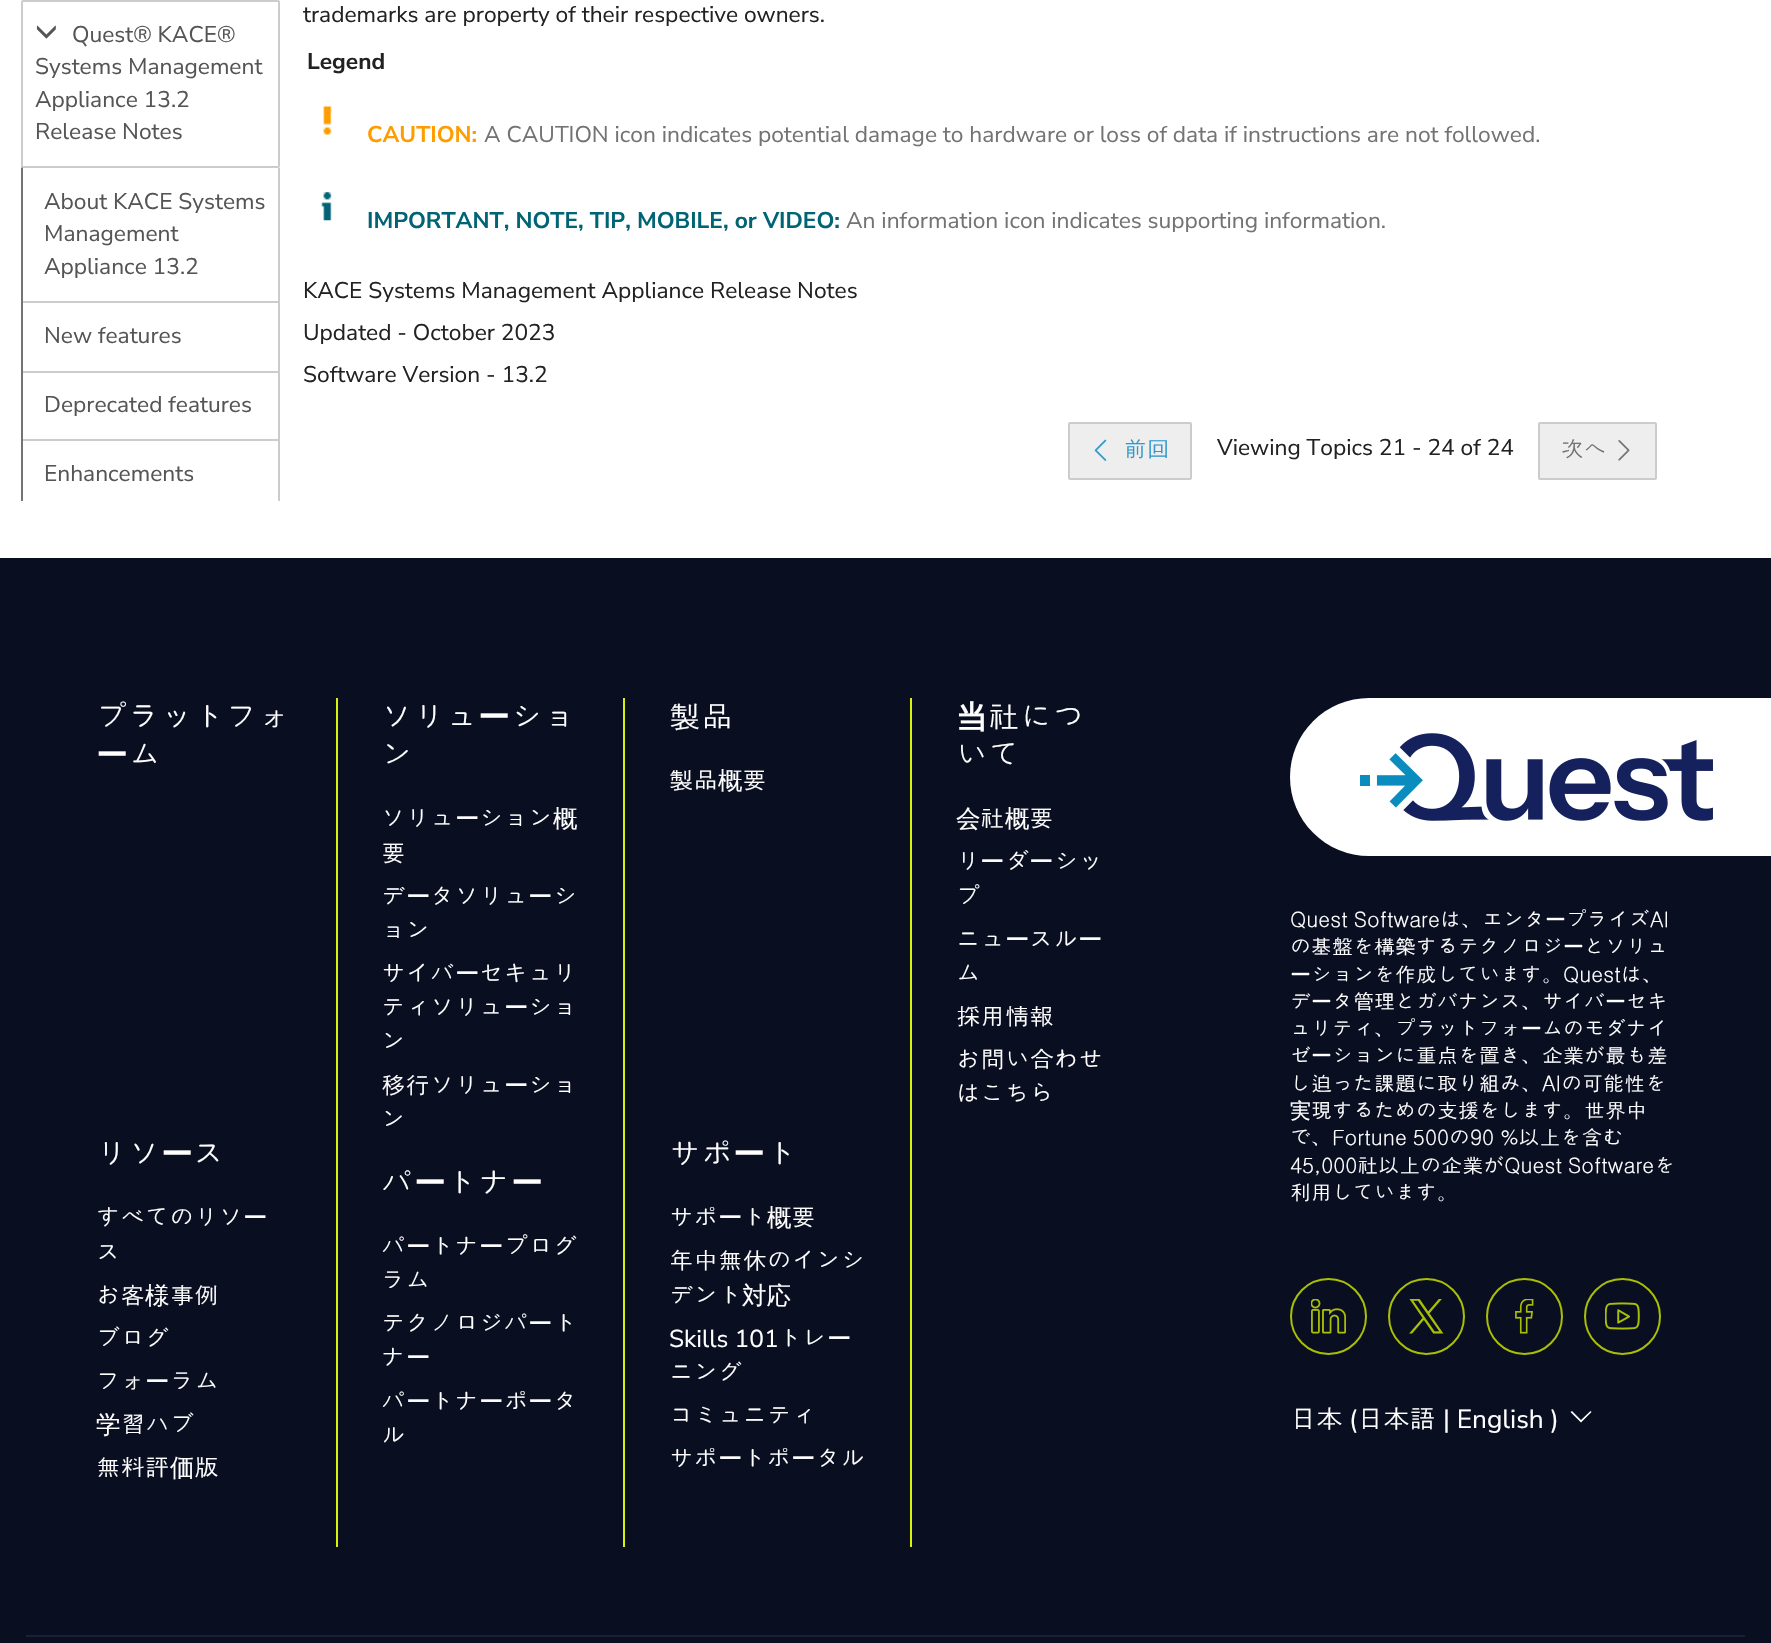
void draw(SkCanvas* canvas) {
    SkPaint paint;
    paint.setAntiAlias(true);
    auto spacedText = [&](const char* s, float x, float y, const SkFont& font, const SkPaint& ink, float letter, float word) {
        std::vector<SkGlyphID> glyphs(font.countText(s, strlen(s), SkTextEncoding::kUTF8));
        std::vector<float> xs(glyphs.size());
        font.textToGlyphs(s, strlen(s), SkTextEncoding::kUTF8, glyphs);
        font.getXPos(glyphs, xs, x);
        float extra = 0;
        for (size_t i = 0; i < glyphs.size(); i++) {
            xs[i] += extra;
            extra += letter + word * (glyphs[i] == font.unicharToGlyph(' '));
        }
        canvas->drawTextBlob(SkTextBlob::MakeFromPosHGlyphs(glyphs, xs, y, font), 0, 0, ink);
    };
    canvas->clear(0xFFFFFFFF);
    paint.setStyle(SkPaint::kStroke_Style);
    paint.setStrokeWidth(2);
    paint.setColor(0xFFCCCCCC);
    canvas->drawPath(SkPathBuilder().moveTo(23, 1).lineTo(278, 1).cubicTo(278.5f, 1, 279, 1.5f, 279, 2).lineTo(279, 167).lineTo(22, 167).lineTo(22, 2).cubicTo(22, 1.5f, 22.5f, 1, 23, 1).close().detach(), paint);
    canvas->drawImageRect(SkImages::DeferredFromEncodedData(SkData::MakeFromFileName("img1.png")), SkRect::MakeXYWH(36, 25, 20, 14), SkSamplingOptions());
    SkFont font1(fontMgr->matchFamilyStyle("Nunito Sans", SkFontStyle::Normal()), 22.75f);
    font1.setSubpixel(true);
    paint.setStyle(SkPaint::kFill_Style);
    paint.setColor(0xFF555555);
    canvas->drawString("Quest® KACE®", 72, 42, font1, paint);
    canvas->drawString("Systems Management", 35, 74, font1, paint);
    canvas->drawString("Appliance 13.2", 35, 107, font1, paint);
    canvas->drawString("Release Notes", 35, 139, font1, paint);
    paint.setColor(0xFFFFFFFF);
    canvas->drawPath(SkPathBuilder().moveTo(23, 166).lineTo(278, 166).cubicTo(279, 166, 280, 167, 280, 168).lineTo(280, 303).lineTo(21, 303).lineTo(21, 168).cubicTo(21, 167, 22, 166, 23, 166).close().detach(), paint);
    paint.setColor(0xFFCCCCCC);
    canvas->drawPath(SkPathBuilder().moveTo(23, 168).lineTo(22, 167).lineTo(22, 166).lineTo(279, 166).lineTo(279, 167).lineTo(278, 168).close().detach(), paint);
    canvas->drawPath(SkPathBuilder().moveTo(280, 303).lineTo(280, 168).lineTo(279, 167).lineTo(278, 168).lineTo(278, 301).close().detach(), paint);
    paint.setColor(0xFF737373);
    canvas->drawPath(SkPathBuilder().moveTo(21, 303).lineTo(23, 301).lineTo(23, 168).lineTo(22, 167).lineTo(21, 168).close().detach(), paint);
    paint.setColor(0xFF555555);
    canvas->drawString("About KACE Systems", 44, 209, font1, paint);
    canvas->drawString("Management", 44, 241, font1, paint);
    canvas->drawString("Appliance 13.2", 44, 274, font1, paint);
    paint.setColor(0xFFCCCCCC);
    canvas->drawRect(SkRect::MakeXYWH(21, 301, 259, 2), paint);
    canvas->drawRect(SkRect::MakeXYWH(278, 301, 2, 72), paint);
    paint.setColor(0xFF737373);
    canvas->drawRect(SkRect::MakeXYWH(21, 301, 2, 72), paint);
    paint.setColor(0xFF555555);
    canvas->drawString("New features", 44, 343, font1, paint);
    paint.setColor(0xFFCCCCCC);
    canvas->drawRect(SkRect::MakeXYWH(21, 371, 259, 2), paint);
    canvas->drawRect(SkRect::MakeXYWH(278, 371, 2, 70), paint);
    paint.setColor(0xFF737373);
    canvas->drawRect(SkRect::MakeXYWH(21, 371, 2, 70), paint);
    paint.setColor(0xFF555555);
    canvas->drawString("Deprecated features", 44, 412, font1, paint);
    paint.setColor(0xFFCCCCCC);
    canvas->drawRect(SkRect::MakeXYWH(21, 439, 259, 2), paint);
    canvas->drawRect(SkRect::MakeXYWH(278, 439, 2, 62), paint);
    paint.setColor(0xFF737373);
    canvas->drawRect(SkRect::MakeXYWH(21, 439, 2, 62), paint);
    paint.setColor(0xFF555555);
    canvas->drawString("Enhancements", 44, 481, font1, paint);
    paint.setColor(0xFF222222);
    canvas->drawString("trademarks are property of their respective owners.", 303, 22, font1, paint);
    SkFont font2(fontMgr->matchFamilyStyle("Nunito Sans", SkFontStyle::Bold()), 22.75f);
    font2.setSubpixel(true);
    canvas->drawString("Legend", 307, 69, font2, paint);
    canvas->drawImageRect(SkImages::DeferredFromEncodedData(SkData::MakeFromFileName("img2.png")), SkRect::MakeXYWH(323, 106, 9, 29), SkSamplingOptions());
    paint.setColor(0xFFFF9D00);
    canvas->drawString("CAUTION:", 367, 142, font2, paint);
    paint.setColor(0xFF737373);
    canvas->drawString("A CAUTION icon indicates potential damage to hardware or loss of data if instructions are not followed.", 484, 142, font1, paint);
    canvas->drawImageRect(SkImages::DeferredFromEncodedData(SkData::MakeFromFileName("img3.png")), SkRect::MakeXYWH(321, 192, 11, 29), SkSamplingOptions());
    paint.setColor(0xFF016475);
    canvas->drawString("IMPORTANT, NOTE, TIP, MOBILE, or VIDEO:", 367, 228, font2, paint);
    paint.setColor(0xFF737373);
    canvas->drawString("An information icon indicates supporting information.", 846, 228, font1, paint);
    paint.setColor(0xFF222222);
    canvas->drawString("KACE Systems Management Appliance Release Notes", 303, 298, font1, paint);
    canvas->drawString("Updated - October 2023", 303, 340, font1, paint);
    canvas->drawString("Software Version - 13.2", 303, 382, font1, paint);
    paint.setColor(0xFFEEEEEE);
    canvas->drawRoundRect(SkRect::MakeXYWH(1069, 423, 122, 56), 1, 1, paint);
    paint.setStyle(SkPaint::kStroke_Style);
    paint.setColor(0xFFCCCCCC);
    canvas->drawRoundRect(SkRect::MakeXYWH(1069, 423, 122, 56), 1, 1, paint);
    canvas->drawImageRect(SkImages::DeferredFromEncodedData(SkData::MakeFromFileName("img4.png")), SkRect::MakeXYWH(1094, 439, 13, 22), SkSamplingOptions());
    SkFont font3(fontMgr->matchFamilyStyle("Gulim", SkFontStyle::Normal()), 22.75f);
    font3.setSubpixel(true);
    paint.setStyle(SkPaint::kFill_Style);
    paint.setColor(0xFF3399CC);
    canvas->drawString("前回", 1124, 457, font3, paint);
    paint.setColor(0xFF222222);
    canvas->drawString("Viewing Topics 21 - 24 of 24", 1217, 455, font1, paint);
    paint.setColor(0xFFEEEEEE);
    canvas->drawRoundRect(SkRect::MakeXYWH(1539, 423, 117, 56), 1, 1, paint);
    paint.setStyle(SkPaint::kStroke_Style);
    paint.setColor(0xFFCCCCCC);
    canvas->drawRoundRect(SkRect::MakeXYWH(1539, 423, 117, 56), 1, 1, paint);
    paint.setStyle(SkPaint::kFill_Style);
    paint.setColor(0xFF737373);
    canvas->drawString("次へ", 1561, 457, font3, paint);
    canvas->drawImageRect(SkImages::DeferredFromEncodedData(SkData::MakeFromFileName("img5.png")), SkRect::MakeXYWH(1618, 440, 12, 21), SkSamplingOptions());
    paint.setColor(0xFF0A0E21);
    canvas->drawRect(SkRect::MakeXYWH(0, 558, 1771, 1085), paint);
    SkFont font4(fontMgr->matchFamilyStyle("Gulim", SkFontStyle::Normal()), 31.5f);
    font4.setSubpixel(true);
    paint.setColor(0xFFFFFFFF);
    spacedText("プラットフォ", 96, 728, font4, paint, 1, 0);
    SkFont font5(fontMgr->matchFamilyStyle("WenQuanYi Zen Hei", SkFontStyle::Bold()), 31.5f);
    font5.setSubpixel(true);
    spacedText("ー", 96, 766, font5, paint, 1, 0);
    spacedText("ム", 129, 766, font4, paint, 1, 0);
    spacedText("リソ", 96, 1165, font4, paint, 1, 0);
    spacedText("ー", 161, 1165, font5, paint, 1, 0);
    spacedText("ス", 193, 1165, font4, paint, 1, 0);
    SkFont font6(fontMgr->matchFamilyStyle("Gulim", SkFontStyle::Normal()), 24.5f);
    font6.setSubpixel(true);
    canvas->drawString("すべてのリソ", 96, 1226, font6, paint);
    SkFont font7(fontMgr->matchFamilyStyle("WenQuanYi Zen Hei", SkFontStyle(500, SkFontStyle::kNormal_Width, SkFontStyle::kUpright_Slant)), 24.5f);
    font7.setSubpixel(true);
    canvas->drawString("ー", 243, 1226, font7, paint);
    canvas->drawString("ス", 96, 1261, font6, paint);
    canvas->drawString("お客", 96, 1304, font6, paint);
    canvas->drawString("様", 145, 1304, font7, paint);
    canvas->drawString("事例", 170, 1304, font6, paint);
    canvas->drawString("ブログ", 96, 1347, font6, paint);
    canvas->drawString("フォ", 96, 1390, font6, paint);
    canvas->drawString("ー", 145, 1390, font7, paint);
    canvas->drawString("ラム", 170, 1390, font6, paint);
    canvas->drawString("学", 96, 1433, font7, paint);
    canvas->drawString("習ハブ", 121, 1433, font6, paint);
    canvas->drawString("無料評", 96, 1476, font6, paint);
    canvas->drawString("価", 170, 1476, font7, paint);
    canvas->drawString("版", 194, 1476, font6, paint);
    paint.setColor(0xFFD7F20C);
    canvas->drawRect(SkRect::MakeXYWH(336, 698, 2, 849), paint);
    paint.setColor(0xFFFFFFFF);
    spacedText("ソリュ", 381, 728, font4, paint, 1, 0);
    spacedText("ー", 478, 728, font5, paint, 1, 0);
    spacedText("ショ", 511, 728, font4, paint, 1, 0);
    spacedText("ン", 381, 766, font4, paint, 1, 0);
    canvas->drawString("ソリュ", 381, 827, font6, paint);
    canvas->drawString("ー", 455, 827, font7, paint);
    canvas->drawString("ション", 479, 827, font6, paint);
    canvas->drawString("概", 553, 827, font7, paint);
    canvas->drawString("要", 381, 862, font6, paint);
    canvas->drawString("デ", 381, 905, font6, paint);
    canvas->drawString("ー", 406, 905, font7, paint);
    canvas->drawString("タソリュ", 430, 905, font6, paint);
    canvas->drawString("ー", 528, 905, font7, paint);
    canvas->drawString("シ", 553, 905, font6, paint);
    canvas->drawString("ョン", 381, 939, font6, paint);
    canvas->drawString("サイバ", 381, 982, font6, paint);
    canvas->drawString("ー", 455, 982, font7, paint);
    canvas->drawString("セキュリ", 479, 982, font6, paint);
    canvas->drawString("ティソリュ", 381, 1016, font6, paint);
    canvas->drawString("ー", 504, 1016, font7, paint);
    canvas->drawString("ショ", 528, 1016, font6, paint);
    canvas->drawString("ン", 381, 1050, font6, paint);
    canvas->drawString("移行ソリュ", 381, 1094, font6, paint);
    canvas->drawString("ー", 504, 1094, font7, paint);
    canvas->drawString("ショ", 528, 1094, font6, paint);
    canvas->drawString("ン", 381, 1128, font6, paint);
    spacedText("パ", 381, 1194, font4, paint, 1, 0);
    spacedText("ー", 414, 1194, font5, paint, 1, 0);
    spacedText("トナ", 446, 1194, font4, paint, 1, 0);
    spacedText("ー", 511, 1194, font5, paint, 1, 0);
    canvas->drawString("パ", 381, 1255, font6, paint);
    canvas->drawString("ー", 406, 1255, font7, paint);
    canvas->drawString("トナ", 430, 1255, font6, paint);
    canvas->drawString("ー", 479, 1255, font7, paint);
    canvas->drawString("プログ", 504, 1255, font6, paint);
    canvas->drawString("ラム", 381, 1289, font6, paint);
    canvas->drawString("テクノロジパ", 381, 1332, font6, paint);
    canvas->drawString("ー", 528, 1332, font7, paint);
    canvas->drawString("ト", 553, 1332, font6, paint);
    canvas->drawString("ナ", 381, 1366, font6, paint);
    canvas->drawString("ー", 406, 1366, font7, paint);
    canvas->drawString("パ", 381, 1410, font6, paint);
    canvas->drawString("ー", 406, 1410, font7, paint);
    canvas->drawString("トナ", 430, 1410, font6, paint);
    canvas->drawString("ー", 479, 1410, font7, paint);
    canvas->drawString("ポ", 504, 1410, font6, paint);
    canvas->drawString("ー", 528, 1410, font7, paint);
    canvas->drawString("タ", 553, 1410, font6, paint);
    canvas->drawString("ル", 381, 1444, font6, paint);
    paint.setColor(0xFFD7F20C);
    canvas->drawRect(SkRect::MakeXYWH(623, 698, 2, 849), paint);
    paint.setColor(0xFFFFFFFF);
    spacedText("製品", 669, 728, font4, paint, 1, 0);
    canvas->drawString("製品", 669, 789, font6, paint);
    canvas->drawString("概", 718, 789, font7, paint);
    canvas->drawString("要", 742, 789, font6, paint);
    spacedText("サポ", 669, 1165, font4, paint, 1, 0);
    spacedText("ー", 733, 1165, font5, paint, 1, 0);
    spacedText("ト", 766, 1165, font4, paint, 1, 0);
    canvas->drawString("サポ", 669, 1226, font6, paint);
    canvas->drawString("ー", 718, 1226, font7, paint);
    canvas->drawString("ト", 742, 1226, font6, paint);
    canvas->drawString("概", 767, 1226, font7, paint);
    canvas->drawString("要", 791, 1226, font6, paint);
    canvas->drawString("年中無休のインシ", 669, 1269, font6, paint);
    canvas->drawString("デント", 669, 1304, font6, paint);
    canvas->drawString("対応", 742, 1304, font7, paint);
    SkFont font8(fontMgr->matchFamilyStyle("Nunito Sans", SkFontStyle::Normal()), 24.5f);
    font8.setSubpixel(true);
    canvas->drawString("Skills 101", 669, 1347, font8, paint);
    canvas->drawString("トレ", 778, 1347, font6, paint);
    canvas->drawString("ー", 827, 1347, font7, paint);
    canvas->drawString("ニング", 669, 1381, font6, paint);
    canvas->drawString("コミュニティ", 669, 1424, font6, paint);
    canvas->drawString("サポ", 669, 1467, font6, paint);
    canvas->drawString("ー", 718, 1467, font7, paint);
    canvas->drawString("トポ", 742, 1467, font6, paint);
    canvas->drawString("ー", 791, 1467, font7, paint);
    canvas->drawString("タル", 816, 1467, font6, paint);
    paint.setColor(0xFFD7F20C);
    canvas->drawRect(SkRect::MakeXYWH(910, 698, 2, 849), paint);
    paint.setColor(0xFFFFFFFF);
    spacedText("当", 956, 728, font5, paint, 1, 0);
    spacedText("社につ", 988, 728, font4, paint, 1, 0);
    spacedText("いて", 956, 766, font4, paint, 1, 0);
    canvas->drawString("会", 956, 827, font7, paint);
    canvas->drawString("社", 980, 827, font6, paint);
    canvas->drawString("概", 1005, 827, font7, paint);
    canvas->drawString("要", 1029, 827, font6, paint);
    canvas->drawString("リ", 956, 870, font6, paint);
    canvas->drawString("ー", 980, 870, font7, paint);
    canvas->drawString("ダ", 1005, 870, font6, paint);
    canvas->drawString("ー", 1029, 870, font7, paint);
    canvas->drawString("シッ", 1054, 870, font6, paint);
    canvas->drawString("プ", 956, 905, font6, paint);
    canvas->drawString("ニュ", 956, 948, font6, paint);
    canvas->drawString("ー", 1005, 948, font7, paint);
    canvas->drawString("スル", 1029, 948, font6, paint);
    canvas->drawString("ー", 1078, 948, font7, paint);
    canvas->drawString("ム", 956, 982, font6, paint);
    canvas->drawString("採用情報", 956, 1025, font6, paint);
    canvas->drawString("お問い合わせ", 956, 1068, font6, paint);
    canvas->drawString("はこちら", 956, 1102, font6, paint);
    canvas->drawRoundRect(SkRect::MakeXYWH(1290, 698, 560, 158), 79, 79, paint);
    canvas->drawImageRect(SkImages::DeferredFromEncodedData(SkData::MakeFromFileName("img6.png")), SkRect::MakeXYWH(1360, 733, 353, 88), SkSamplingOptions());
    SkFont font9(fontMgr->matchFamilyStyle("Gulim", SkFontStyle::Normal()), 21);
    font9.setSubpixel(true);
    spacedText("Quest Softwareは、エンタ", 1290, 927, font9, paint, 0, -1);
    SkFont font10(fontMgr->matchFamilyStyle("WenQuanYi Zen Hei", SkFontStyle(500, SkFontStyle::kNormal_Width, SkFontStyle::kUpright_Slant)), 21);
    font10.setSubpixel(true);
    canvas->drawString("ー", 1545, 927, font10, paint);
    canvas->drawString("プライズAI", 1566, 927, font9, paint);
    canvas->drawString("の基盤を構築するテクノロジ", 1290, 954, font9, paint);
    canvas->drawString("ー", 1563, 954, font10, paint);
    canvas->drawString("とソリュ", 1584, 954, font9, paint);
    canvas->drawString("ー", 1290, 982, font10, paint);
    canvas->drawString("ションを作成しています。Questは、", 1311, 982, font9, paint);
    canvas->drawString("デ", 1290, 1009, font9, paint);
    canvas->drawString("ー", 1311, 1009, font10, paint);
    canvas->drawString("タ管理とガバナンス、サイバ", 1332, 1009, font9, paint);
    canvas->drawString("ー", 1605, 1009, font10, paint);
    canvas->drawString("セキ", 1626, 1009, font9, paint);
    canvas->drawString("ュリティ、プラットフォ", 1290, 1036, font9, paint);
    canvas->drawString("ー", 1521, 1036, font10, paint);
    canvas->drawString("ムのモダナイ", 1542, 1036, font9, paint);
    canvas->drawString("ゼ", 1290, 1063, font9, paint);
    canvas->drawString("ー", 1311, 1063, font10, paint);
    canvas->drawString("ションに重点を置き、企業が最も差", 1332, 1063, font9, paint);
    canvas->drawString("し迫った課題に取り組み、AIの可能性を", 1290, 1091, font9, paint);
    canvas->drawString("実", 1290, 1118, font10, paint);
    canvas->drawString("現するための支援をします。世界中", 1311, 1118, font9, paint);
    spacedText("で、Fortune 500の90 %以上を含む", 1290, 1145, font9, paint, 0, -1);
    spacedText("45,000社以上の企業がQuest Softwareを", 1290, 1173, font9, paint, 0, -1);
    canvas->drawString("利用しています。", 1290, 1200, font9, paint);
    paint.setStyle(SkPaint::kStroke_Style);
    paint.setColor(0xFFA9BF04);
    canvas->drawCircle(1328.5f, 1316.5f, 37.5f, paint);
    canvas->drawImageRect(SkImages::DeferredFromEncodedData(SkData::MakeFromFileName("img7.png")), SkRect::MakeXYWH(1311, 1299, 35, 35), SkSamplingOptions());
    canvas->drawCircle(1426.5f, 1316.5f, 37.5f, paint);
    canvas->drawImageRect(SkImages::DeferredFromEncodedData(SkData::MakeFromFileName("img8.png")), SkRect::MakeXYWH(1409, 1299, 35, 35), SkSamplingOptions());
    canvas->drawCircle(1524.5f, 1316.5f, 37.5f, paint);
    canvas->drawImageRect(SkImages::DeferredFromEncodedData(SkData::MakeFromFileName("img9.png")), SkRect::MakeXYWH(1515, 1299, 19, 35), SkSamplingOptions());
    canvas->drawCircle(1622.5f, 1316.5f, 37.5f, paint);
    canvas->drawImageRect(SkImages::DeferredFromEncodedData(SkData::MakeFromFileName("img10.png")), SkRect::MakeXYWH(1605, 1302, 35, 28), SkSamplingOptions());
    SkFont font11(fontMgr->matchFamilyStyle("Gulim", SkFontStyle::Normal()), 26.25f);
    font11.setSubpixel(true);
    paint.setStyle(SkPaint::kFill_Style);
    paint.setColor(0xFFFFFFFF);
    canvas->drawString("日本", 1290, 1428, font11, paint);
    SkFont font12(fontMgr->matchFamilyStyle("Nunito Sans", SkFontStyle::Normal()), 26.25f);
    font12.setSubpixel(true);
    canvas->drawString("(", 1349, 1428, font12, paint);
    canvas->drawString("日本語", 1357, 1428, font11, paint);
    canvas->drawString("| English )", 1443, 1428, font12, paint);
    canvas->drawPath(SkPathBuilder().moveTo(1590.5f, 1411).lineTo(1581, 1420).lineTo(1572, 1411).lineTo(1570.5f, 1412).lineTo(1581, 1422.5f).lineTo(1591.5f, 1412).close().detach(), paint);
    paint.setColor(0xFF1A1F35);
    canvas->drawRect(SkRect::MakeXYWH(26, 1635, 1719, 2), paint);
}
